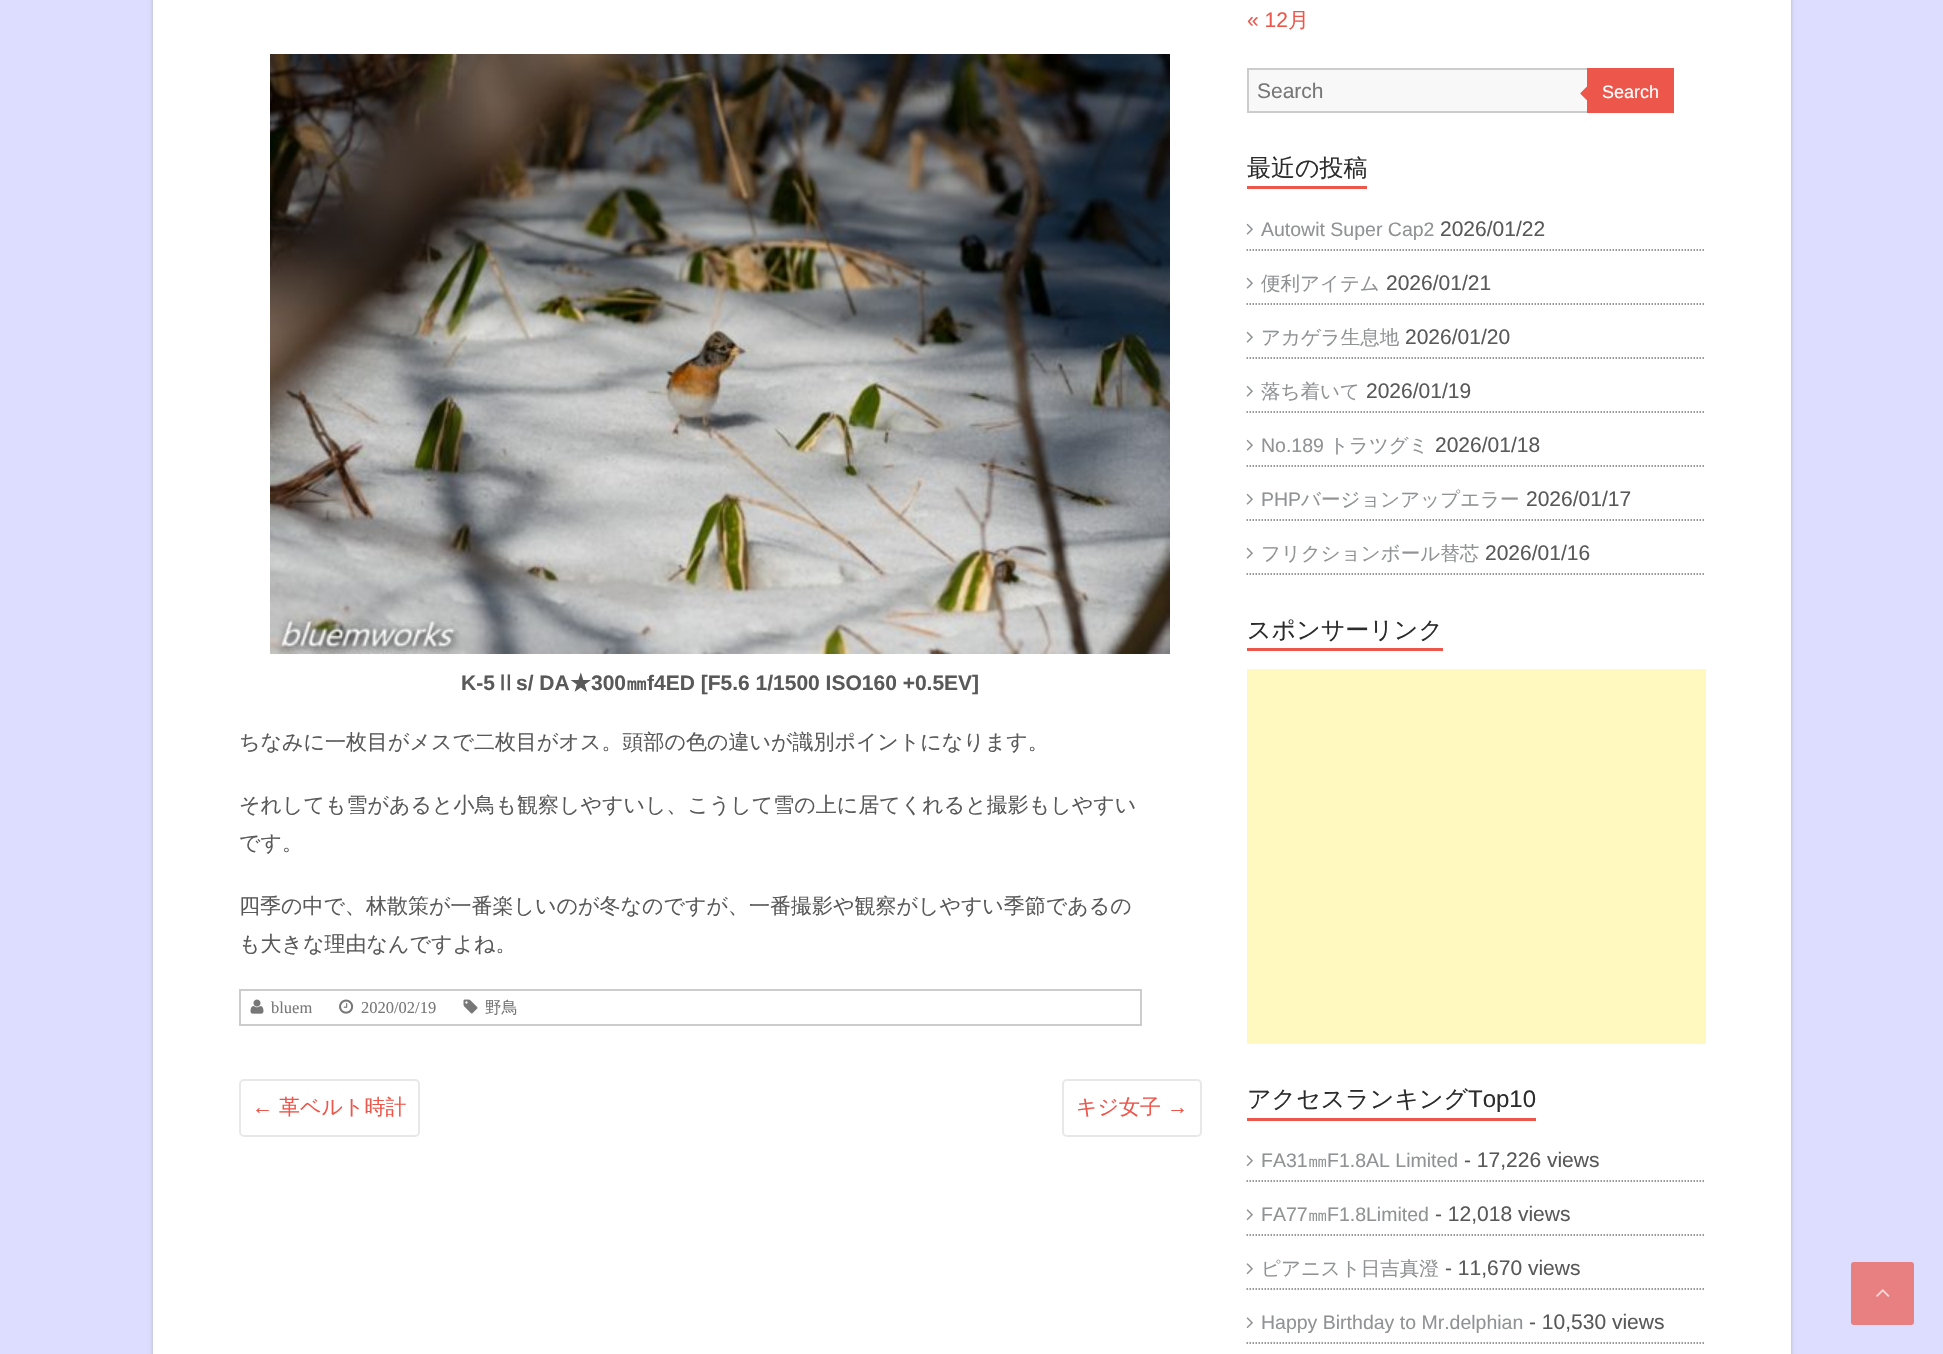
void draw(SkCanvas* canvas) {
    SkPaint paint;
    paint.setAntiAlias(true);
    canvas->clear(0xFFDDDDFF);
    paint.setColor(0x33000000);
    paint.setMaskFilter(SkMaskFilter::MakeBlur(kNormal_SkBlurStyle, 2));
    canvas->drawRect(SkRect::MakeXYWH(153, -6, 1638, 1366), paint);
    paint.setMaskFilter(nullptr);
    paint.setColor(0xFFFFFFFF);
    canvas->drawRect(SkRect::MakeXYWH(153, 0, 1638, 1354), paint);
    canvas->drawImageRect(SkImages::DeferredFromEncodedData(SkData::MakeFromFileName("img1.png")), SkRect::MakeXYWH(270, 54, 900, 600), SkSamplingOptions());
    SkFont font1(fontMgr->matchFamilyStyle("Liberation Sans", SkFontStyle::Bold()), 21);
    font1.setSubpixel(true);
    paint.setColor(0xFF595959);
    canvas->drawString("K-5", 461, 690, font1, paint);
    SkFont font2(fontMgr->matchFamilyStyle("WenQuanYi Zen Hei", SkFontStyle::Bold()), 21);
    font2.setSubpixel(true);
    canvas->drawString("Ⅱ", 495, 690, font2, paint);
    canvas->drawString("s/ DA", 516, 690, font1, paint);
    canvas->drawString("★", 570, 690, font2, paint);
    canvas->drawString("300", 591, 690, font1, paint);
    canvas->drawString("㎜", 626, 690, font2, paint);
    canvas->drawString("f4ED [F5.6 1/1500 ISO160 +0.5EV]", 647, 690, font1, paint);
    SkFont font3(fontMgr->matchFamilyStyle("WenQuanYi Zen Hei", SkFontStyle(500, SkFontStyle::kNormal_Width, SkFontStyle::kUpright_Slant)), 21);
    font3.setSubpixel(true);
    canvas->drawString("ちなみに一枚目がメスで二枚目がオス。頭部の色の違いが識別ポイントになります。", 239, 749, font3, paint);
    canvas->drawString("それしても雪があると小鳥も観察しやすいし、こうして雪の上に居てくれると撮影もしやすい", 239, 812, font3, paint);
    canvas->drawString("です。", 239, 850, font3, paint);
    canvas->drawString("四季の中で、林散策が一番楽しいのが冬なのですが、一番撮影や観察がしやすい季節であるの", 239, 913, font3, paint);
    canvas->drawString("も大きな理由なんですよね。", 239, 951, font3, paint);
    paint.setStyle(SkPaint::kStroke_Style);
    paint.setStrokeWidth(2);
    paint.setColor(0xFFCCCCCC);
    canvas->drawRect(SkRect::MakeXYWH(240, 990, 901, 35), paint);
    canvas->drawImageRect(SkImages::DeferredFromEncodedData(SkData::MakeFromFileName("img2.png")), SkRect::MakeXYWH(250, 999, 14, 15), SkSamplingOptions());
    SkFont font4(fontMgr->matchFamilyStyle("Liberation Serif", SkFontStyle::Normal()), 16.5f);
    font4.setSubpixel(true);
    paint.setStyle(SkPaint::kFill_Style);
    paint.setColor(0xFF777777);
    canvas->drawString("bluem", 271, 1013, font4, paint);
    canvas->drawImageRect(SkImages::DeferredFromEncodedData(SkData::MakeFromFileName("img3.png")), SkRect::MakeXYWH(339, 999, 15, 15), SkSamplingOptions());
    canvas->drawString("2020/02/19", 361, 1013, font4, paint);
    canvas->drawImageRect(SkImages::DeferredFromEncodedData(SkData::MakeFromFileName("img4.png")), SkRect::MakeXYWH(463, 999, 15, 15), SkSamplingOptions());
    SkFont font5(fontMgr->matchFamilyStyle("WenQuanYi Zen Hei", SkFontStyle(500, SkFontStyle::kNormal_Width, SkFontStyle::kUpright_Slant)), 16.5f);
    font5.setSubpixel(true);
    canvas->drawString("野鳥", 485, 1013, font5, paint);
    paint.setStyle(SkPaint::kStroke_Style);
    paint.setColor(0xFFE8E8E8);
    canvas->drawRoundRect(SkRect::MakeXYWH(240, 1080, 179, 56), 4, 4, paint);
    SkFont font6(fontMgr->matchFamilyStyle("Liberation Sans", SkFontStyle::Normal()), 21);
    font6.setSubpixel(true);
    paint.setStyle(SkPaint::kFill_Style);
    paint.setColor(0xFFED564B);
    canvas->drawString("←", 252, 1114, font6, paint);
    canvas->drawString("革ベルト時計", 279, 1114, font3, paint);
    paint.setStyle(SkPaint::kStroke_Style);
    paint.setColor(0xFFE8E8E8);
    canvas->drawRoundRect(SkRect::MakeXYWH(1063, 1080, 138, 56), 4, 4, paint);
    paint.setStyle(SkPaint::kFill_Style);
    paint.setColor(0xFFED564B);
    canvas->drawString("キジ女子", 1076, 1114, font3, paint);
    canvas->drawString("→", 1167, 1114, font6, paint);
    canvas->drawString("« 12", 1247, 27, font6, paint);
    canvas->drawString("月", 1288, 27, font3, paint);
    paint.setColor(0xFFF8F8F8);
    canvas->drawRect(SkRect::MakeXYWH(1248, 69, 340, 43), paint);
    paint.setStyle(SkPaint::kStroke_Style);
    paint.setColor(0xFFCCCCCC);
    canvas->drawRect(SkRect::MakeXYWH(1248, 69, 340, 43), paint);
    paint.setStyle(SkPaint::kFill_Style);
    paint.setColor(0xFF777777);
    canvas->drawString("Search", 1257, 98, font6, paint);
    paint.setColor(0xFFED564B);
    canvas->drawRect(SkRect::MakeXYWH(1587, 68, 87, 45), paint);
    canvas->drawImageRect(SkImages::DeferredFromEncodedData(SkData::MakeFromFileName("img5.png")), SkRect::MakeXYWH(1580, 86, 7, 15), SkSamplingOptions());
    SkFont font7(fontMgr->matchFamilyStyle("Liberation Sans", SkFontStyle::Normal()), 18);
    font7.setSubpixel(true);
    paint.setColor(0xFFFFFFFF);
    canvas->drawString("Search", 1602, 98, font7, paint);
    SkFont font8(fontMgr->matchFamilyStyle("WenQuanYi Zen Hei", SkFontStyle(500, SkFontStyle::kNormal_Width, SkFontStyle::kUpright_Slant)), 24);
    font8.setSubpixel(true);
    paint.setColor(0xFF2C2C2C);
    canvas->drawString("最近の投稿", 1247, 176, font8, paint);
    paint.setColor(0xFFED564B);
    canvas->drawRect(SkRect::MakeXYWH(1247, 186, 120, 3), paint);
    paint.setStyle(SkPaint::kStroke_Style);
    paint.setStrokeWidth(1.5f);
    paint.setColor(0xFF777777);
    paint.setPathEffect(SkDashPathEffect::Make({{1.5f, 1.5f}}, 0));
    canvas->drawPath(SkPathBuilder().moveTo(1246.5f, 250).lineTo(1705.5f, 250).detach(), paint);
    paint.setPathEffect(nullptr);
    canvas->drawImageRect(SkImages::DeferredFromEncodedData(SkData::MakeFromFileName("img6.png")), SkRect::MakeXYWH(1246, 223, 7, 12), SkSamplingOptions());
    SkFont font9(fontMgr->matchFamilyStyle("Liberation Sans", SkFontStyle::Normal()), 19.5f);
    font9.setSubpixel(true);
    paint.setStyle(SkPaint::kFill_Style);
    paint.setColor(0xFF909294);
    canvas->drawString("Autowit Super Cap2", 1261, 236, font9, paint);
    paint.setColor(0xFF595959);
    canvas->drawString("2026/01/22", 1440, 236, font6, paint);
    paint.setStyle(SkPaint::kStroke_Style);
    paint.setColor(0xFF777777);
    paint.setPathEffect(SkDashPathEffect::Make({{1.5f, 1.5f}}, 0));
    canvas->drawPath(SkPathBuilder().moveTo(1246.5f, 304).lineTo(1705.5f, 304).detach(), paint);
    paint.setPathEffect(nullptr);
    canvas->drawImageRect(SkImages::DeferredFromEncodedData(SkData::MakeFromFileName("img6.png")), SkRect::MakeXYWH(1246, 277, 7, 12), SkSamplingOptions());
    SkFont font10(fontMgr->matchFamilyStyle("WenQuanYi Zen Hei", SkFontStyle(500, SkFontStyle::kNormal_Width, SkFontStyle::kUpright_Slant)), 19.5f);
    font10.setSubpixel(true);
    paint.setStyle(SkPaint::kFill_Style);
    paint.setColor(0xFF909294);
    canvas->drawString("便利アイテム", 1261, 290, font10, paint);
    paint.setColor(0xFF595959);
    canvas->drawString("2026/01/21", 1386, 290, font6, paint);
    paint.setStyle(SkPaint::kStroke_Style);
    paint.setColor(0xFF777777);
    paint.setPathEffect(SkDashPathEffect::Make({{1.5f, 1.5f}}, 0));
    canvas->drawPath(SkPathBuilder().moveTo(1246.5f, 358).lineTo(1705.5f, 358).detach(), paint);
    paint.setPathEffect(nullptr);
    canvas->drawImageRect(SkImages::DeferredFromEncodedData(SkData::MakeFromFileName("img6.png")), SkRect::MakeXYWH(1246, 331, 7, 12), SkSamplingOptions());
    paint.setStyle(SkPaint::kFill_Style);
    paint.setColor(0xFF909294);
    canvas->drawString("アカゲラ生息地", 1261, 344, font10, paint);
    paint.setColor(0xFF595959);
    canvas->drawString("2026/01/20", 1405, 344, font6, paint);
    paint.setStyle(SkPaint::kStroke_Style);
    paint.setColor(0xFF777777);
    paint.setPathEffect(SkDashPathEffect::Make({{1.5f, 1.5f}}, 0));
    canvas->drawPath(SkPathBuilder().moveTo(1246.5f, 412).lineTo(1705.5f, 412).detach(), paint);
    paint.setPathEffect(nullptr);
    canvas->drawImageRect(SkImages::DeferredFromEncodedData(SkData::MakeFromFileName("img6.png")), SkRect::MakeXYWH(1246, 385, 7, 12), SkSamplingOptions());
    paint.setStyle(SkPaint::kFill_Style);
    paint.setColor(0xFF909294);
    canvas->drawString("落ち着いて", 1261, 398, font10, paint);
    paint.setColor(0xFF595959);
    canvas->drawString("2026/01/19", 1366, 398, font6, paint);
    paint.setStyle(SkPaint::kStroke_Style);
    paint.setColor(0xFF777777);
    paint.setPathEffect(SkDashPathEffect::Make({{1.5f, 1.5f}}, 0));
    canvas->drawPath(SkPathBuilder().moveTo(1246.5f, 466).lineTo(1705.5f, 466).detach(), paint);
    paint.setPathEffect(nullptr);
    canvas->drawImageRect(SkImages::DeferredFromEncodedData(SkData::MakeFromFileName("img6.png")), SkRect::MakeXYWH(1246, 439, 7, 12), SkSamplingOptions());
    paint.setStyle(SkPaint::kFill_Style);
    paint.setColor(0xFF909294);
    canvas->drawString("No.189", 1261, 452, font9, paint);
    canvas->drawString("トラツグミ", 1329, 452, font10, paint);
    paint.setColor(0xFF595959);
    canvas->drawString("2026/01/18", 1435, 452, font6, paint);
    paint.setStyle(SkPaint::kStroke_Style);
    paint.setColor(0xFF777777);
    paint.setPathEffect(SkDashPathEffect::Make({{1.5f, 1.5f}}, 0));
    canvas->drawPath(SkPathBuilder().moveTo(1246.5f, 520).lineTo(1705.5f, 520).detach(), paint);
    paint.setPathEffect(nullptr);
    canvas->drawImageRect(SkImages::DeferredFromEncodedData(SkData::MakeFromFileName("img6.png")), SkRect::MakeXYWH(1246, 493, 7, 12), SkSamplingOptions());
    paint.setStyle(SkPaint::kFill_Style);
    paint.setColor(0xFF909294);
    canvas->drawString("PHP", 1261, 506, font9, paint);
    canvas->drawString("バージョンアップエラー", 1301, 506, font10, paint);
    paint.setColor(0xFF595959);
    canvas->drawString("2026/01/17", 1526, 506, font6, paint);
    paint.setStyle(SkPaint::kStroke_Style);
    paint.setColor(0xFF777777);
    paint.setPathEffect(SkDashPathEffect::Make({{1.5f, 1.5f}}, 0));
    canvas->drawPath(SkPathBuilder().moveTo(1246.5f, 574).lineTo(1705.5f, 574).detach(), paint);
    paint.setPathEffect(nullptr);
    canvas->drawImageRect(SkImages::DeferredFromEncodedData(SkData::MakeFromFileName("img6.png")), SkRect::MakeXYWH(1246, 547, 7, 12), SkSamplingOptions());
    paint.setStyle(SkPaint::kFill_Style);
    paint.setColor(0xFF909294);
    canvas->drawString("フリクションボール替芯", 1261, 560, font10, paint);
    paint.setColor(0xFF595959);
    canvas->drawString("2026/01/16", 1485, 560, font6, paint);
    paint.setColor(0xFF2C2C2C);
    canvas->drawString("スポンサーリンク", 1247, 638, font8, paint);
    paint.setColor(0xFFED564B);
    canvas->drawRect(SkRect::MakeXYWH(1247, 648, 196, 3), paint);
    paint.setColor(0xFFFFF9C0);
    canvas->drawRect(SkRect::MakeXYWH(1247, 669, 459, 375), paint);
    paint.setColor(0xFF2C2C2C);
    canvas->drawString("アクセスランキング", 1247, 1107, font8, paint);
    SkFont font11(fontMgr->matchFamilyStyle("Liberation Sans", SkFontStyle::Normal()), 24);
    font11.setSubpixel(true);
    canvas->drawString("Top10", 1468, 1107, font11, paint);
    paint.setColor(0xFFED564B);
    canvas->drawRect(SkRect::MakeXYWH(1247, 1118, 289, 3), paint);
    paint.setStyle(SkPaint::kStroke_Style);
    paint.setColor(0xFF777777);
    paint.setPathEffect(SkDashPathEffect::Make({{1.5f, 1.5f}}, 0));
    canvas->drawPath(SkPathBuilder().moveTo(1246.5f, 1181).lineTo(1705.5f, 1181).detach(), paint);
    paint.setPathEffect(nullptr);
    canvas->drawImageRect(SkImages::DeferredFromEncodedData(SkData::MakeFromFileName("img7.png")), SkRect::MakeXYWH(1246, 1155, 7, 12), SkSamplingOptions());
    paint.setStyle(SkPaint::kFill_Style);
    paint.setColor(0xFF909294);
    canvas->drawString("FA31", 1261, 1167, font9, paint);
    canvas->drawString("㎜", 1308, 1167, font10, paint);
    canvas->drawString("F1.8AL Limited", 1327, 1167, font9, paint);
    paint.setColor(0xFF595959);
    canvas->drawString("- 17,226 views", 1464, 1167, font6, paint);
    paint.setStyle(SkPaint::kStroke_Style);
    paint.setColor(0xFF777777);
    paint.setPathEffect(SkDashPathEffect::Make({{1.5f, 1.5f}}, 0));
    canvas->drawPath(SkPathBuilder().moveTo(1246.5f, 1235).lineTo(1705.5f, 1235).detach(), paint);
    paint.setPathEffect(nullptr);
    canvas->drawImageRect(SkImages::DeferredFromEncodedData(SkData::MakeFromFileName("img7.png")), SkRect::MakeXYWH(1246, 1209, 7, 12), SkSamplingOptions());
    paint.setStyle(SkPaint::kFill_Style);
    paint.setColor(0xFF909294);
    canvas->drawString("FA77", 1261, 1221, font9, paint);
    canvas->drawString("㎜", 1308, 1221, font10, paint);
    canvas->drawString("F1.8Limited", 1327, 1221, font9, paint);
    paint.setColor(0xFF595959);
    canvas->drawString("- 12,018 views", 1435, 1221, font6, paint);
    paint.setStyle(SkPaint::kStroke_Style);
    paint.setColor(0xFF777777);
    paint.setPathEffect(SkDashPathEffect::Make({{1.5f, 1.5f}}, 0));
    canvas->drawPath(SkPathBuilder().moveTo(1246.5f, 1289).lineTo(1705.5f, 1289).detach(), paint);
    paint.setPathEffect(nullptr);
    canvas->drawImageRect(SkImages::DeferredFromEncodedData(SkData::MakeFromFileName("img7.png")), SkRect::MakeXYWH(1246, 1263, 7, 12), SkSamplingOptions());
    paint.setStyle(SkPaint::kFill_Style);
    paint.setColor(0xFF909294);
    canvas->drawString("ピアニスト日吉真澄", 1261, 1275, font10, paint);
    paint.setColor(0xFF595959);
    canvas->drawString("- 11,670 views", 1445, 1275, font6, paint);
    paint.setStyle(SkPaint::kStroke_Style);
    paint.setColor(0xFF777777);
    paint.setPathEffect(SkDashPathEffect::Make({{1.5f, 1.5f}}, 0));
    canvas->drawPath(SkPathBuilder().moveTo(1246.5f, 1343).lineTo(1705.5f, 1343).detach(), paint);
    paint.setPathEffect(nullptr);
    canvas->drawImageRect(SkImages::DeferredFromEncodedData(SkData::MakeFromFileName("img7.png")), SkRect::MakeXYWH(1246, 1317, 7, 12), SkSamplingOptions());
    paint.setStyle(SkPaint::kFill_Style);
    paint.setColor(0xFF909294);
    canvas->drawString("Happy Birthday to Mr.delphian", 1261, 1329, font9, paint);
    paint.setColor(0xFF595959);
    canvas->drawString("- 10,530 views", 1529, 1329, font6, paint);
    paint.setColor(0xFFE87F81);
    canvas->drawRoundRect(SkRect::MakeXYWH(1851, 1262, 63, 63), 3, 3, paint);
    canvas->drawImageRect(SkImages::DeferredFromEncodedData(SkData::MakeFromFileName("img8.png")), SkRect::MakeXYWH(1876, 1289, 14, 8), SkSamplingOptions());
}
